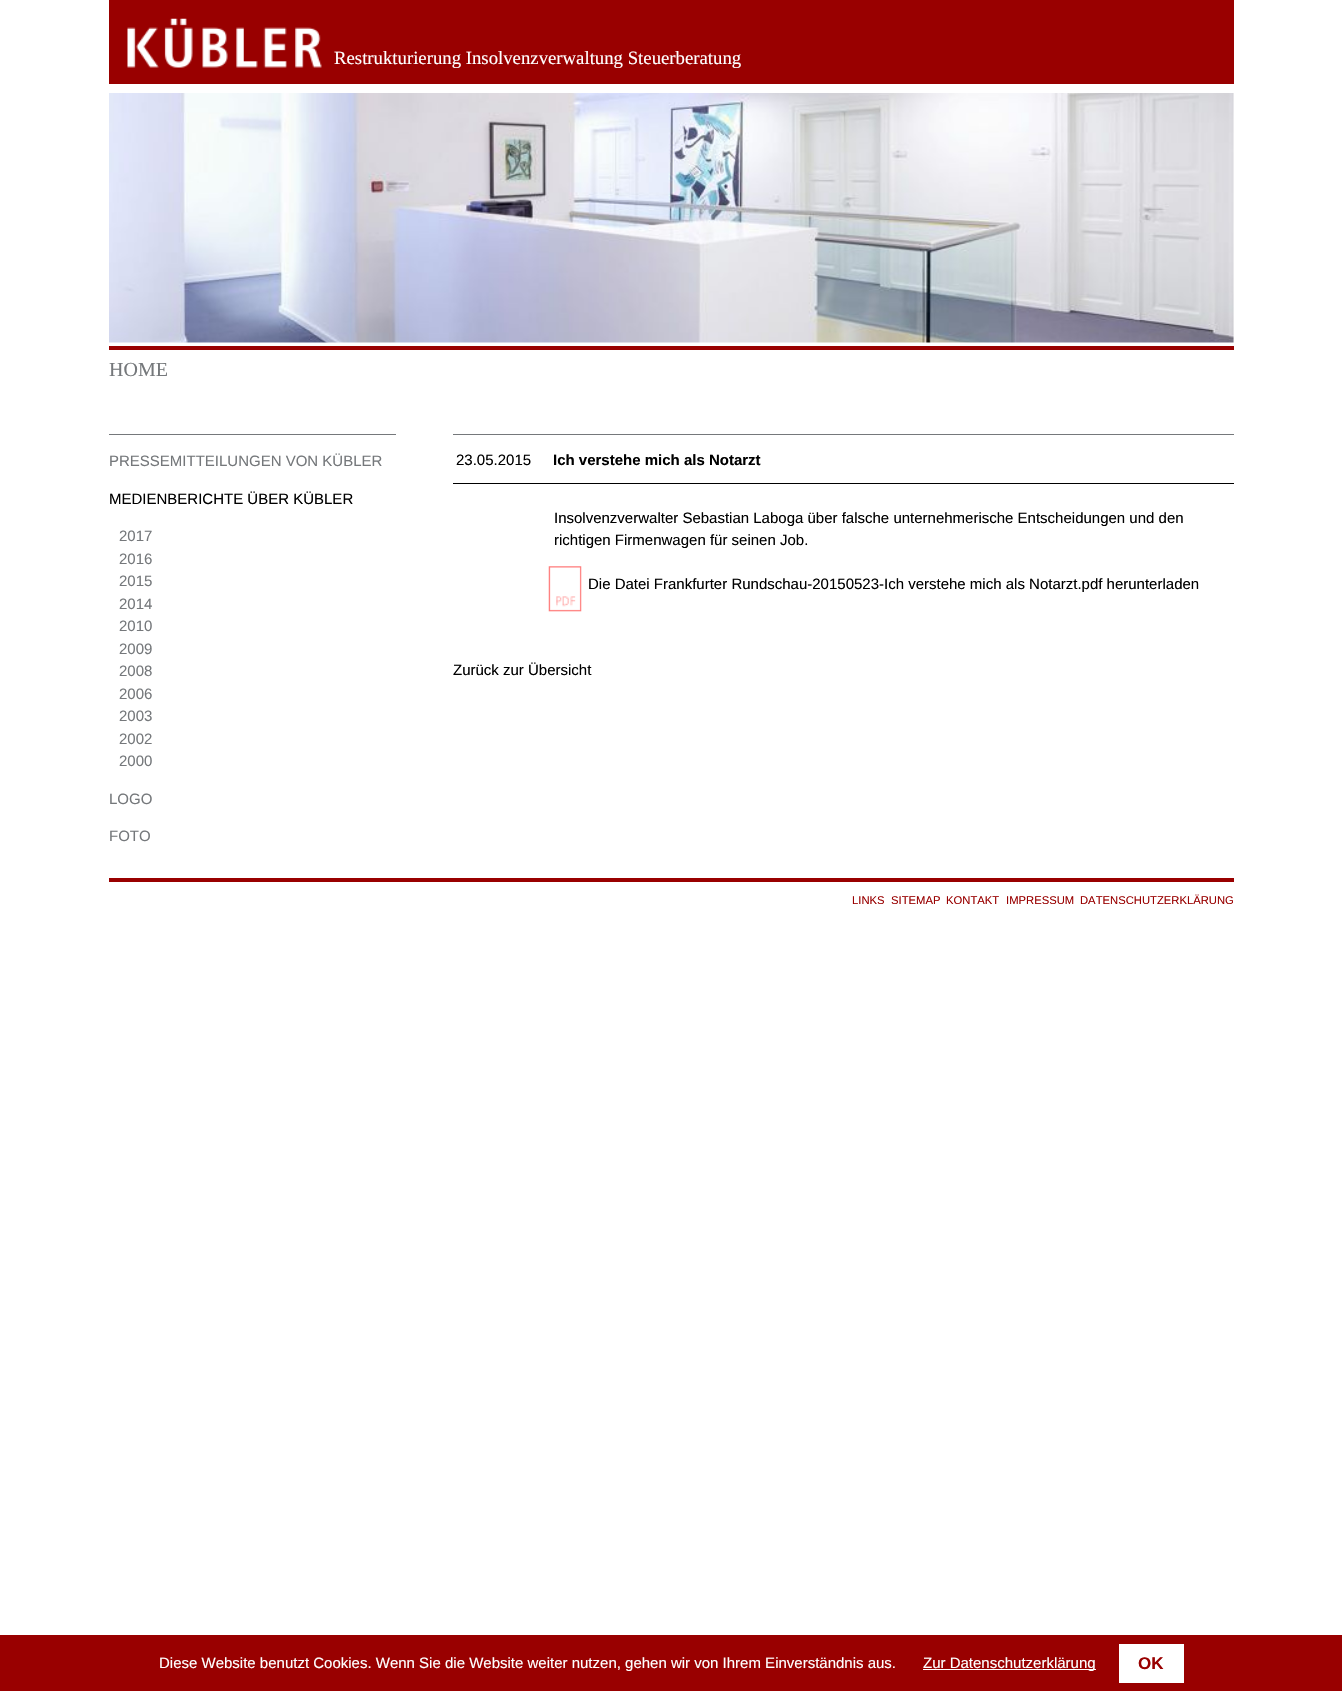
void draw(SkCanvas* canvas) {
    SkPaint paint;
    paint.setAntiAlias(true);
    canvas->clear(0xFFFFFFFF);
    paint.setColor(0xFF990000);
    canvas->drawRect(SkRect::MakeXYWH(109, 0, 1125, 84), paint);
    canvas->drawImageRect(SkImages::DeferredFromEncodedData(SkData::MakeFromFileName("img1.png")), SkRect::MakeXYWH(127, 18, 195, 50), SkSamplingOptions());
    SkFont font1(fontMgr->matchFamilyStyle("Liberation Serif", SkFontStyle::Normal()), 18.75f);
    font1.setSubpixel(true);
    paint.setColor(0xFFFFFFFF);
    canvas->drawString("Restrukturierung Insolvenzverwaltung Steuerberatung", 334, 64, font1, paint);
    canvas->drawImageRect(SkImages::DeferredFromEncodedData(SkData::MakeFromFileName("img2.png")), SkRect::MakeXYWH(109, 93, 1125, 250), SkSamplingOptions());
    paint.setColor(0xFF990000);
    canvas->drawRect(SkRect::MakeXYWH(109, 346, 1125, 4), paint);
    SkFont font2(fontMgr->matchFamilyStyle("Liberation Serif", SkFontStyle::Normal()), 20);
    font2.setSubpixel(true);
    paint.setColor(0xFF75787B);
    canvas->drawString("HOME", 109, 376, font2, paint);
    canvas->drawRect(SkRect::MakeXYWH(109, 434, 287, 1), paint);
    SkFont font3(fontMgr->matchFamilyStyle("Liberation Sans", SkFontStyle::Normal()), 15);
    font3.setSubpixel(true);
    canvas->drawString("PRESSEMITTEILUNGEN VON KÜBLER", 109, 466, font3, paint);
    paint.setColor(0xFF000000);
    canvas->drawString("MEDIENBERICHTE ÜBER KÜBLER", 109, 504, font3, paint);
    paint.setColor(0xFF75787B);
    canvas->drawString("2017", 119, 541, font3, paint);
    canvas->drawString("2016", 119, 564, font3, paint);
    canvas->drawString("2015", 119, 586, font3, paint);
    canvas->drawString("2014", 119, 609, font3, paint);
    canvas->drawString("2010", 119, 631, font3, paint);
    canvas->drawString("2009", 119, 654, font3, paint);
    canvas->drawString("2008", 119, 676, font3, paint);
    canvas->drawString("2006", 119, 699, font3, paint);
    canvas->drawString("2003", 119, 721, font3, paint);
    canvas->drawString("2002", 119, 744, font3, paint);
    canvas->drawString("2000", 119, 766, font3, paint);
    canvas->drawString("LOGO", 109, 804, font3, paint);
    canvas->drawString("FOTO", 109, 841, font3, paint);
    canvas->drawRect(SkRect::MakeXYWH(453, 434, 781, 1), paint);
    paint.setColor(0xFF000000);
    canvas->drawRect(SkRect::MakeXYWH(453, 483, 781, 1), paint);
    canvas->drawString("23.05.2015", 456, 465, font3, paint);
    SkFont font4(fontMgr->matchFamilyStyle("Liberation Sans", SkFontStyle::Bold()), 15);
    font4.setSubpixel(true);
    canvas->drawString("Ich verstehe mich als Notarzt", 553, 465, font4, paint);
    canvas->drawString("Insolvenzverwalter Sebastian Laboga über falsche unternehmerische Entscheidungen und den", 554, 523, font3, paint);
    canvas->drawString("richtigen Firmenwagen für seinen Job.", 554, 545, font3, paint);
    canvas->drawImageRect(SkImages::DeferredFromEncodedData(SkData::MakeFromFileName("img3.png")), SkRect::MakeXYWH(548, 566, 34, 46), SkSamplingOptions());
    canvas->drawString("Die Datei Frankfurter Rundschau-20150523-Ich verstehe mich als Notarzt.pdf herunterladen", 588, 589, font3, paint);
    canvas->drawString("Zurück zur Übersicht", 453, 675, font3, paint);
    paint.setColor(0xFF990000);
    canvas->drawRect(SkRect::MakeXYWH(109, 878, 1125, 4), paint);
    SkFont font5(fontMgr->matchFamilyStyle("Liberation Sans", SkFontStyle::Normal()), 11.25f);
    font5.setSubpixel(true);
    canvas->drawString("LINKS", 852, 904, font5, paint);
    canvas->drawString("SITEMAP", 891, 904, font5, paint);
    canvas->drawString("KONTAKT", 946, 904, font5, paint);
    canvas->drawString("IMPRESSUM", 1006, 904, font5, paint);
    canvas->drawString("DATENSCHUTZERKLÄRUNG", 1080, 904, font5, paint);
    canvas->drawRect(SkRect::MakeXYWH(0, 1635, 1342, 56), paint);
    paint.setColor(0xFFFFFFFF);
    canvas->drawString("Diese Website benutzt Cookies. Wenn Sie die Website weiter nutzen, gehen wir von Ihrem Einverständnis aus.", 159, 1668, font3, paint);
    canvas->drawRect(SkRect::MakeXYWH(923, 1669, 173, 1), paint);
    canvas->drawString("Zur Datenschutzerklärung", 923, 1668, font3, paint);
    canvas->drawRect(SkRect::MakeXYWH(1119, 1644, 65, 39), paint);
    SkFont font6(fontMgr->matchFamilyStyle("Liberation Sans", SkFontStyle::Bold()), 17);
    font6.setSubpixel(true);
    paint.setColor(0xFF990000);
    canvas->drawString("OK", 1138, 1669, font6, paint);
}
